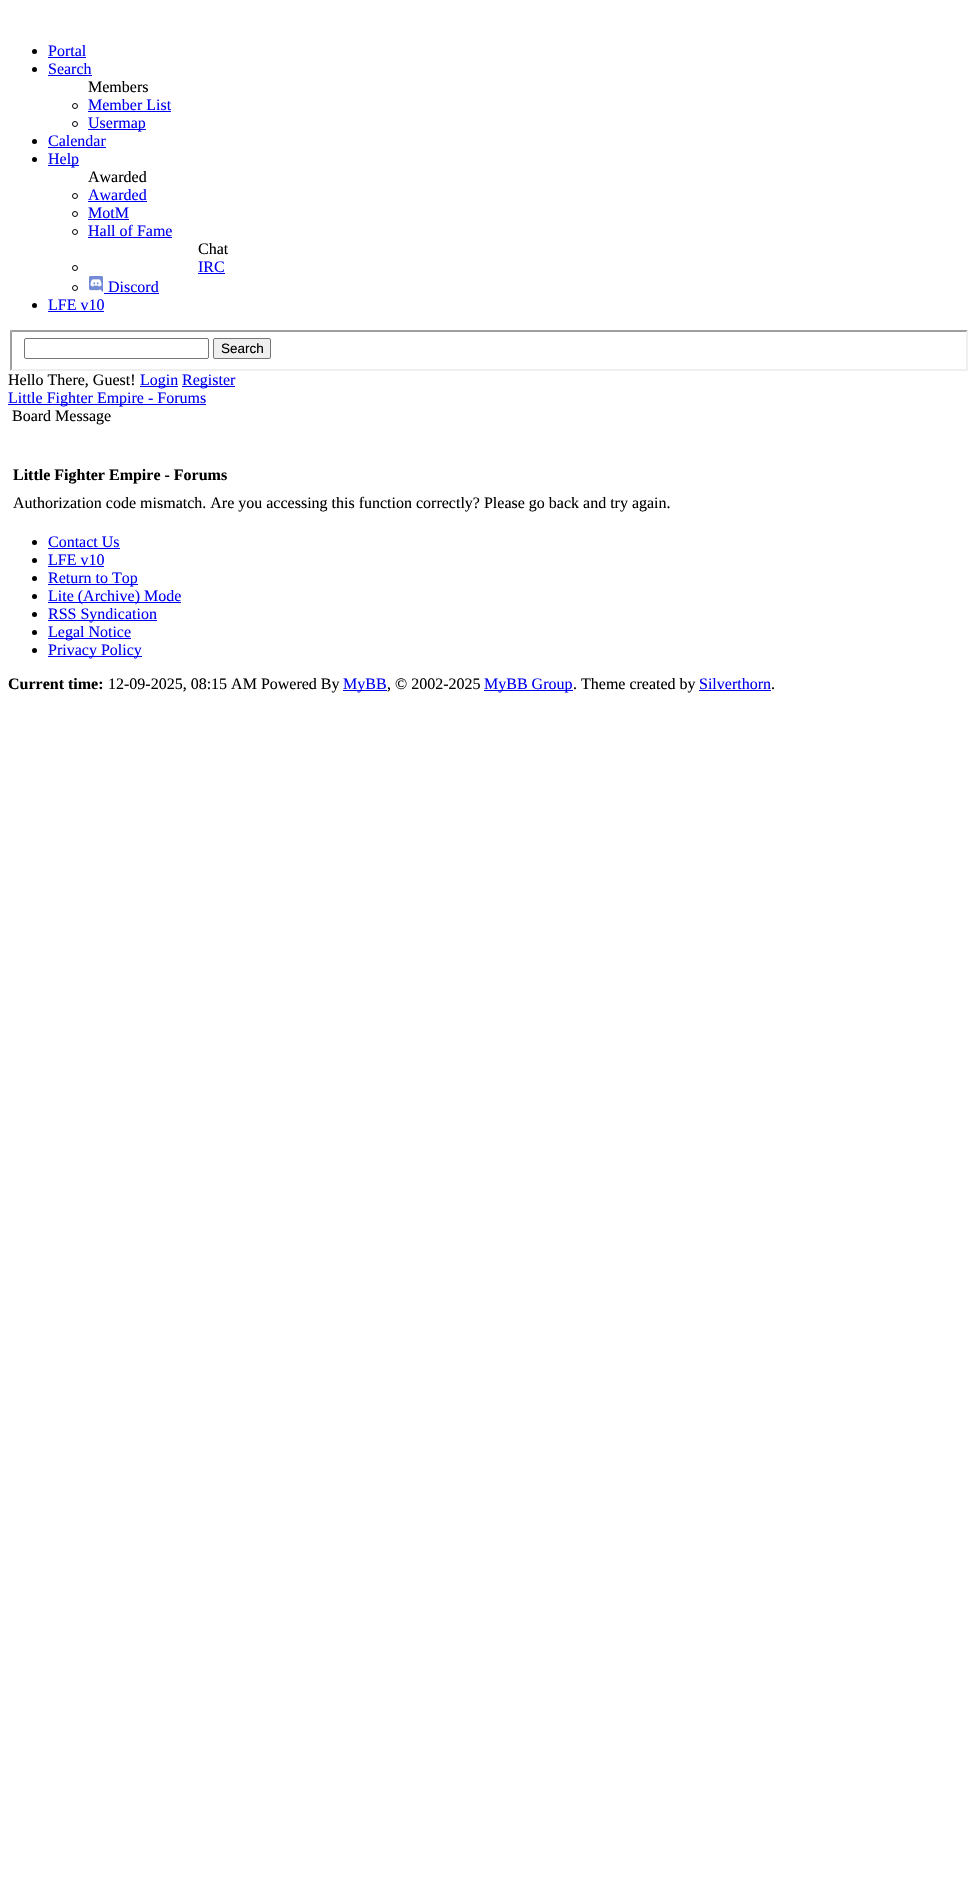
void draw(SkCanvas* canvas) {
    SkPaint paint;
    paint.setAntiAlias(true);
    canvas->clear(0xFFFFFFFF);
    paint.setColor(0xFF000000);
    canvas->drawCircle(34.5f, 51.5f, 2.5f, paint);
    SkFont font1(fontMgr->matchFamilyStyle("Liberation Serif", SkFontStyle::Normal()), 16);
    font1.setSubpixel(true);
    paint.setColor(0xFF0000EE);
    canvas->drawString("Portal", 48, 56, font1, paint);
    canvas->drawRect(SkRect::MakeXYWH(48, 57, 38, 1), paint);
    paint.setColor(0xFF000000);
    canvas->drawCircle(34.5f, 69.5f, 2.5f, paint);
    paint.setColor(0xFF0000EE);
    canvas->drawString("Search", 48, 74, font1, paint);
    canvas->drawRect(SkRect::MakeXYWH(48, 75, 44, 1), paint);
    paint.setColor(0xFF000000);
    canvas->drawString("Members", 88, 92, font1, paint);
    paint.setStyle(SkPaint::kStroke_Style);
    paint.setStrokeWidth(1);
    canvas->drawCircle(75, 106, 2.5f, paint);
    paint.setStyle(SkPaint::kFill_Style);
    paint.setColor(0xFF0000EE);
    canvas->drawString("Member List", 88, 110, font1, paint);
    canvas->drawRect(SkRect::MakeXYWH(88, 111, 83, 1), paint);
    paint.setStyle(SkPaint::kStroke_Style);
    paint.setColor(0xFF000000);
    canvas->drawCircle(75, 124, 2.5f, paint);
    paint.setStyle(SkPaint::kFill_Style);
    paint.setColor(0xFF0000EE);
    canvas->drawRect(SkRect::MakeXYWH(88, 129, 58, 1), paint);
    canvas->drawString("Usermap", 88, 128, font1, paint);
    paint.setColor(0xFF000000);
    canvas->drawCircle(34.5f, 141.5f, 2.5f, paint);
    paint.setColor(0xFF0000EE);
    canvas->drawString("Calendar", 48, 146, font1, paint);
    canvas->drawRect(SkRect::MakeXYWH(48, 147, 58, 1), paint);
    paint.setColor(0xFF000000);
    canvas->drawCircle(34.5f, 159.5f, 2.5f, paint);
    paint.setColor(0xFF0000EE);
    canvas->drawRect(SkRect::MakeXYWH(48, 165, 31, 1), paint);
    canvas->drawString("Help", 48, 164, font1, paint);
    paint.setColor(0xFF000000);
    canvas->drawString("Awarded", 88, 182, font1, paint);
    paint.setStyle(SkPaint::kStroke_Style);
    canvas->drawCircle(75, 196, 2.5f, paint);
    paint.setStyle(SkPaint::kFill_Style);
    paint.setColor(0xFF0000EE);
    canvas->drawString("Awarded", 88, 200, font1, paint);
    canvas->drawRect(SkRect::MakeXYWH(88, 201, 59, 1), paint);
    paint.setStyle(SkPaint::kStroke_Style);
    paint.setColor(0xFF000000);
    canvas->drawCircle(75, 214, 2.5f, paint);
    paint.setStyle(SkPaint::kFill_Style);
    paint.setColor(0xFF0000EE);
    canvas->drawString("MotM", 88, 218, font1, paint);
    canvas->drawRect(SkRect::MakeXYWH(88, 219, 41, 1), paint);
    paint.setStyle(SkPaint::kStroke_Style);
    paint.setColor(0xFF000000);
    canvas->drawCircle(75, 232, 2.5f, paint);
    paint.setStyle(SkPaint::kFill_Style);
    paint.setColor(0xFF0000EE);
    canvas->drawString("Hall of Fame", 88, 236, font1, paint);
    canvas->drawRect(SkRect::MakeXYWH(88, 237, 84, 1), paint);
    paint.setColor(0xFF000000);
    canvas->drawString("Chat", 198, 254, font1, paint);
    paint.setStyle(SkPaint::kStroke_Style);
    canvas->drawCircle(75, 268, 2.5f, paint);
    paint.setStyle(SkPaint::kFill_Style);
    paint.setColor(0xFF0000EE);
    canvas->drawString("IRC", 198, 272, font1, paint);
    canvas->drawRect(SkRect::MakeXYWH(198, 273, 27, 1), paint);
    paint.setStyle(SkPaint::kStroke_Style);
    paint.setColor(0xFF000000);
    canvas->drawCircle(75, 288, 2.5f, paint);
    canvas->drawImageRect(SkImages::DeferredFromEncodedData(SkData::MakeFromFileName("img1.png")), SkRect::MakeXYWH(89, 276, 14, 16), SkSamplingOptions());
    paint.setStyle(SkPaint::kFill_Style);
    paint.setColor(0xFF0000EE);
    canvas->drawString("Discord", 108, 292, font1, paint);
    canvas->drawRect(SkRect::MakeXYWH(104, 293, 55, 1), paint);
    paint.setColor(0xFF000000);
    canvas->drawCircle(34.5f, 305.5f, 2.5f, paint);
    paint.setColor(0xFF0000EE);
    canvas->drawString("LFE v10", 48, 310, font1, paint);
    canvas->drawRect(SkRect::MakeXYWH(48, 311, 56, 1), paint);
    paint.setColor(0xFF9F9F9F);
    canvas->drawPath(SkPathBuilder().moveTo(10, 330).lineTo(968, 330).lineTo(966, 332).lineTo(12, 332).close().detach(), paint);
    paint.setColor(0xFFEFEFEF);
    canvas->drawPath(SkPathBuilder().moveTo(968, 330).lineTo(968, 371).lineTo(966, 369).lineTo(966, 332).close().detach(), paint);
    canvas->drawPath(SkPathBuilder().moveTo(968, 371).lineTo(10, 371).lineTo(12, 369).lineTo(966, 369).close().detach(), paint);
    paint.setColor(0xFF9F9F9F);
    canvas->drawPath(SkPathBuilder().moveTo(10, 371).lineTo(10, 330).lineTo(12, 332).lineTo(12, 369).close().detach(), paint);
    paint.setStyle(SkPaint::kStroke_Style);
    paint.setColor(0xFF767676);
    canvas->drawRoundRect(SkRect::MakeXYWH(24.5f, 338.5f, 184, 20), 1.5f, 1.5f, paint);
    paint.setStyle(SkPaint::kFill_Style);
    paint.setColor(0xFFEFEFEF);
    canvas->drawRoundRect(SkRect::MakeXYWH(213.5f, 338.5f, 57, 20), 1.5f, 1.5f, paint);
    paint.setStyle(SkPaint::kStroke_Style);
    paint.setColor(0xFF767676);
    canvas->drawRoundRect(SkRect::MakeXYWH(213.5f, 338.5f, 57, 20), 1.5f, 1.5f, paint);
    SkFont font2(fontMgr->matchFamilyStyle("Liberation Sans", SkFontStyle::Normal()), 13.5f);
    font2.setSubpixel(true);
    paint.setStyle(SkPaint::kFill_Style);
    paint.setColor(0xFF000000);
    canvas->drawString("Search", 221, 353, font2, paint);
    canvas->drawString("Hello There, Guest!", 8, 385, font1, paint);
    paint.setColor(0xFF0000EE);
    canvas->drawRect(SkRect::MakeXYWH(140, 386, 38, 1), paint);
    canvas->drawString("Login", 140, 385, font1, paint);
    canvas->drawRect(SkRect::MakeXYWH(182, 386, 53, 1), paint);
    canvas->drawString("Register", 182, 385, font1, paint);
    canvas->drawRect(SkRect::MakeXYWH(8, 404, 198, 1), paint);
    canvas->drawString("Little Fighter Empire - Forums", 8, 403, font1, paint);
    paint.setColor(0xFF000000);
    canvas->drawString("Board Message", 12, 421, font1, paint);
    SkFont font3(fontMgr->matchFamilyStyle("Liberation Serif", SkFontStyle::Bold()), 16);
    font3.setSubpixel(true);
    canvas->drawString("Little Fighter Empire - Forums", 13, 480, font3, paint);
    canvas->drawString("Authorization code mismatch. Are you accessing this function correctly? Please go back and try again.", 13, 508, font1, paint);
    canvas->drawCircle(34.5f, 542.5f, 2.5f, paint);
    paint.setColor(0xFF0000EE);
    canvas->drawString("Contact Us", 48, 547, font1, paint);
    canvas->drawRect(SkRect::MakeXYWH(48, 548, 72, 1), paint);
    paint.setColor(0xFF000000);
    canvas->drawCircle(34.5f, 560.5f, 2.5f, paint);
    paint.setColor(0xFF0000EE);
    canvas->drawString("LFE v10", 48, 565, font1, paint);
    canvas->drawRect(SkRect::MakeXYWH(48, 566, 56, 1), paint);
    paint.setColor(0xFF000000);
    canvas->drawCircle(34.5f, 578.5f, 2.5f, paint);
    paint.setColor(0xFF0000EE);
    canvas->drawRect(SkRect::MakeXYWH(48, 584, 90, 1), paint);
    canvas->drawString("Return to Top", 48, 583, font1, paint);
    paint.setColor(0xFF000000);
    canvas->drawCircle(34.5f, 596.5f, 2.5f, paint);
    paint.setColor(0xFF0000EE);
    canvas->drawRect(SkRect::MakeXYWH(48, 602, 133, 1), paint);
    canvas->drawString("Lite (Archive) Mode", 48, 601, font1, paint);
    paint.setColor(0xFF000000);
    canvas->drawCircle(34.5f, 614.5f, 2.5f, paint);
    paint.setColor(0xFF0000EE);
    canvas->drawRect(SkRect::MakeXYWH(48, 620, 109, 1), paint);
    canvas->drawString("RSS Syndication", 48, 619, font1, paint);
    paint.setColor(0xFF000000);
    canvas->drawCircle(34.5f, 632.5f, 2.5f, paint);
    paint.setColor(0xFF0000EE);
    canvas->drawRect(SkRect::MakeXYWH(48, 638, 83, 1), paint);
    canvas->drawString("Legal Notice", 48, 637, font1, paint);
    paint.setColor(0xFF000000);
    canvas->drawCircle(34.5f, 650.5f, 2.5f, paint);
    paint.setColor(0xFF0000EE);
    canvas->drawRect(SkRect::MakeXYWH(48, 656, 94, 1), paint);
    canvas->drawString("Privacy Policy", 48, 655, font1, paint);
    paint.setColor(0xFF000000);
    canvas->drawString("Current time:", 8, 689, font3, paint);
    canvas->drawString("12-09-2025, 08:15 AM Powered By", 108, 689, font1, paint);
    paint.setColor(0xFF0000EE);
    canvas->drawRect(SkRect::MakeXYWH(343, 690, 44, 1), paint);
    canvas->drawString("MyBB", 343, 689, font1, paint);
    paint.setColor(0xFF000000);
    canvas->drawString(", © 2002-2025", 387, 689, font1, paint);
    paint.setColor(0xFF0000EE);
    canvas->drawRect(SkRect::MakeXYWH(484, 690, 89, 1), paint);
    canvas->drawString("MyBB Group", 484, 689, font1, paint);
    paint.setColor(0xFF000000);
    canvas->drawString(". Theme created by", 573, 689, font1, paint);
    paint.setColor(0xFF0000EE);
    canvas->drawString("Silverthorn", 699, 689, font1, paint);
    paint.setColor(0xFF000000);
    canvas->drawString(".", 771, 689, font1, paint);
    paint.setColor(0xFF0000EE);
    canvas->drawRect(SkRect::MakeXYWH(699, 690, 72, 1), paint);
}
